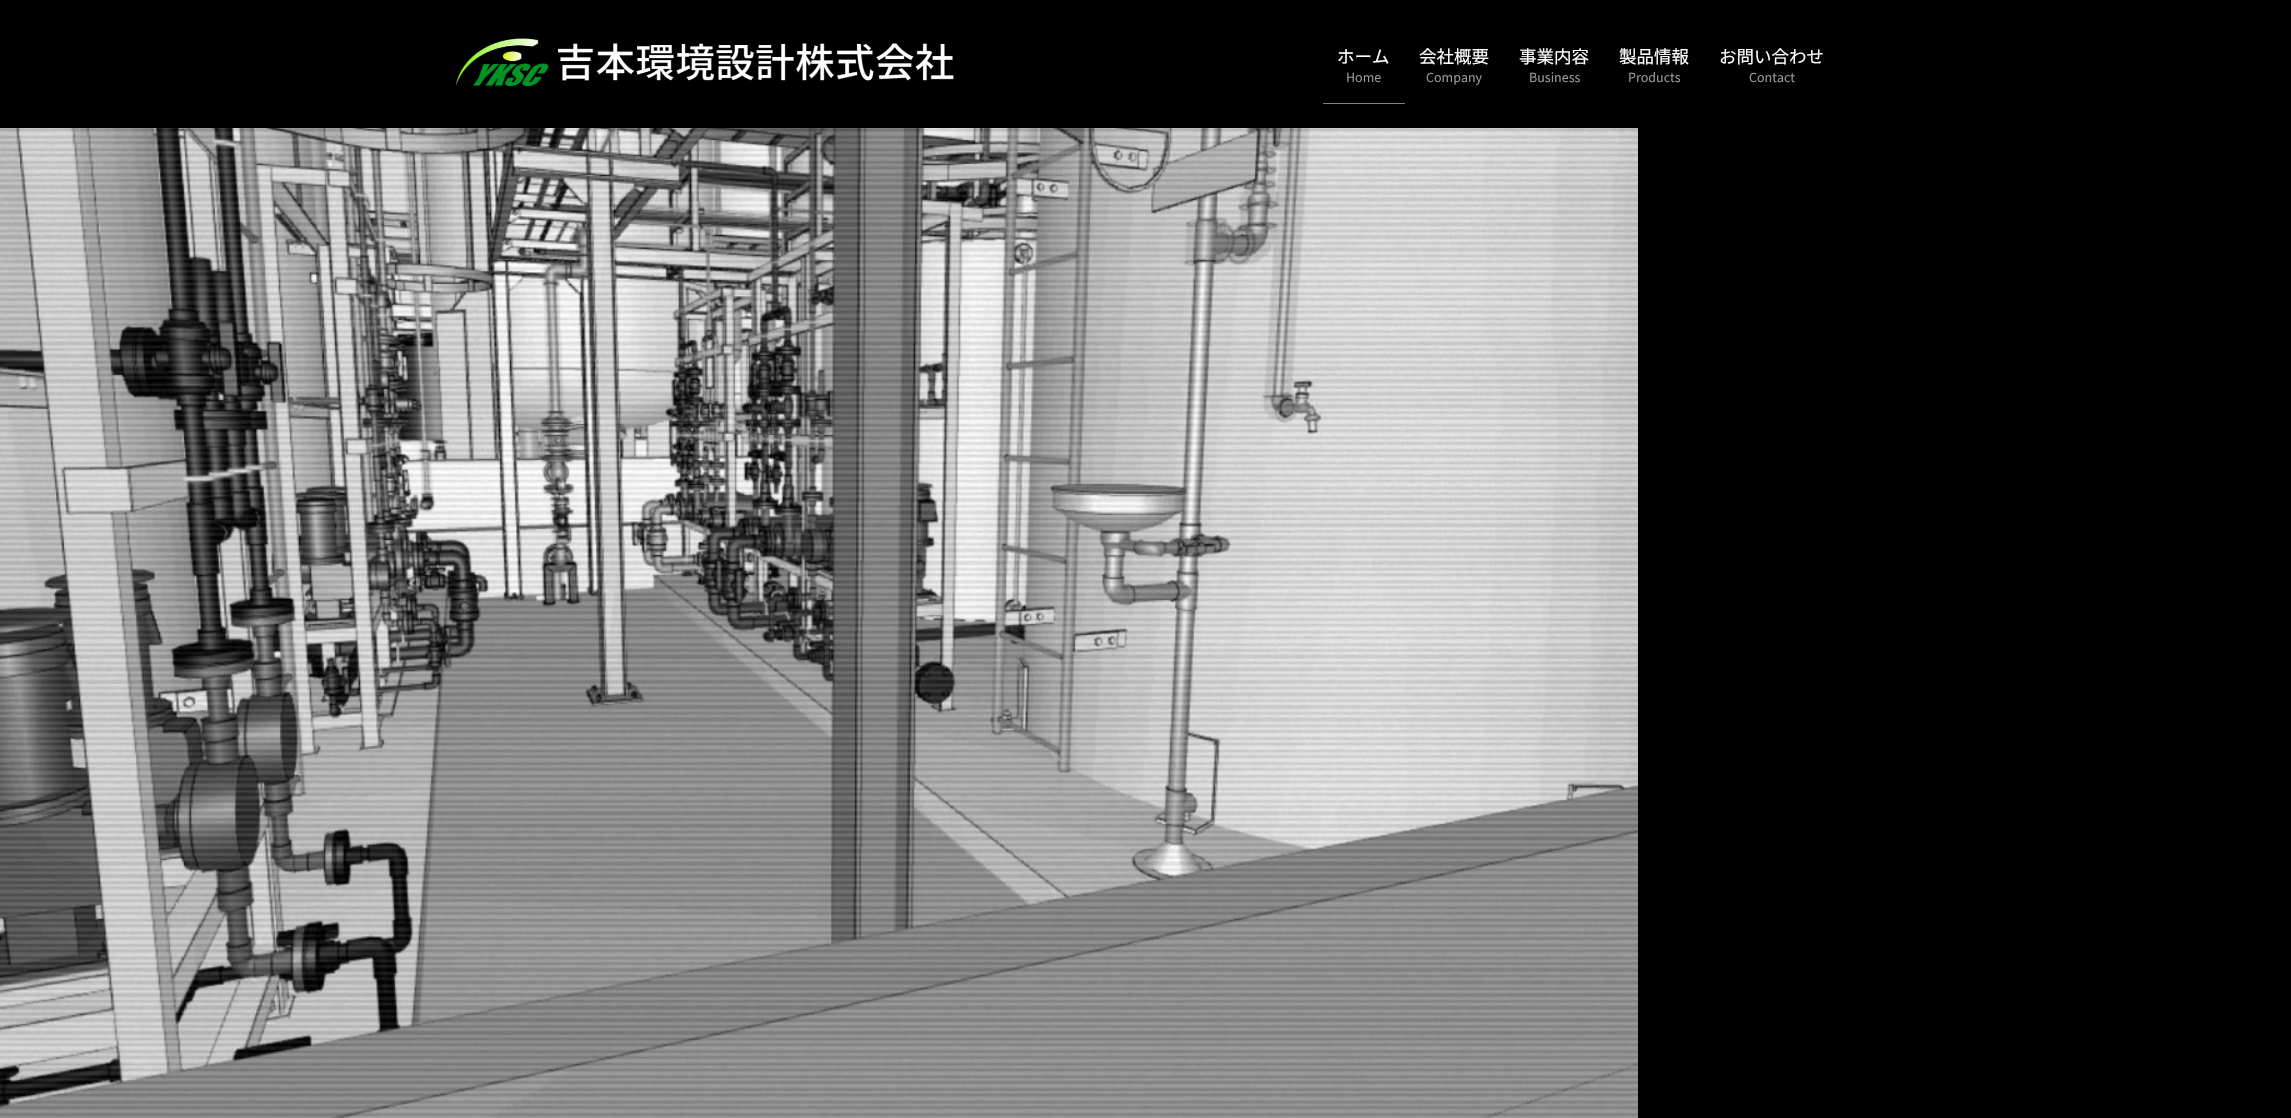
void draw(SkCanvas* canvas) {
    SkPaint paint;
    paint.setAntiAlias(true);
    canvas->clear(0xFF000000);
    canvas->drawImageRect(SkImages::DeferredFromEncodedData(SkData::MakeFromFileName("img2.png")), SkRect::MakeXYWH(0, 128, 1638, 990), SkSamplingOptions());
    paint.setColor(0x1A000000);
    paint.setMaskFilter(SkMaskFilter::MakeBlur(kNormal_SkBlurStyle, 2));
    canvas->drawRect(SkRect::MakeXYWH(0, 1, 2291, 128), paint);
    paint.setMaskFilter(nullptr);
    canvas->drawImageRect(SkImages::DeferredFromEncodedData(SkData::MakeFromFileName("img1.png")), SkRect::MakeXYWH(455, 38, 499, 49), SkSamplingOptions());
    SkFont font1(fontMgr->matchFamilyStyle("Noto Sans JP", SkFontStyle::Normal()), 17.5f);
    font1.setSubpixel(true);
    paint.setColor(0xFFFFFFFF);
    canvas->drawString("ホーム", 1337, 63, font1, paint);
    SkFont font2(fontMgr->matchFamilyStyle("Noto Sans JP", SkFontStyle::Normal()), 12.5f);
    font2.setSubpixel(true);
    paint.setColor(0xFF999999);
    canvas->drawString("Home", 1346, 82, font2, paint);
    paint.setColor(0xFF808080);
    canvas->drawRect(SkRect::MakeXYWH(1323, 103, 82, 1), paint);
    paint.setColor(0xFFFFFFFF);
    canvas->drawString("会社概要", 1419, 63, font1, paint);
    paint.setColor(0xFF999999);
    canvas->drawString("Company", 1426, 82, font2, paint);
    paint.setColor(0xFFFFFFFF);
    canvas->drawString("事業内容", 1519, 63, font1, paint);
    paint.setColor(0xFF999999);
    canvas->drawString("Business", 1529, 82, font2, paint);
    paint.setColor(0xFFFFFFFF);
    canvas->drawString("製品情報", 1619, 63, font1, paint);
    paint.setColor(0xFF999999);
    canvas->drawString("Products", 1628, 82, font2, paint);
    paint.setColor(0xFFFFFFFF);
    canvas->drawString("お問い合わせ", 1719, 63, font1, paint);
    paint.setColor(0xFF999999);
    canvas->drawString("Contact", 1749, 82, font2, paint);
}
